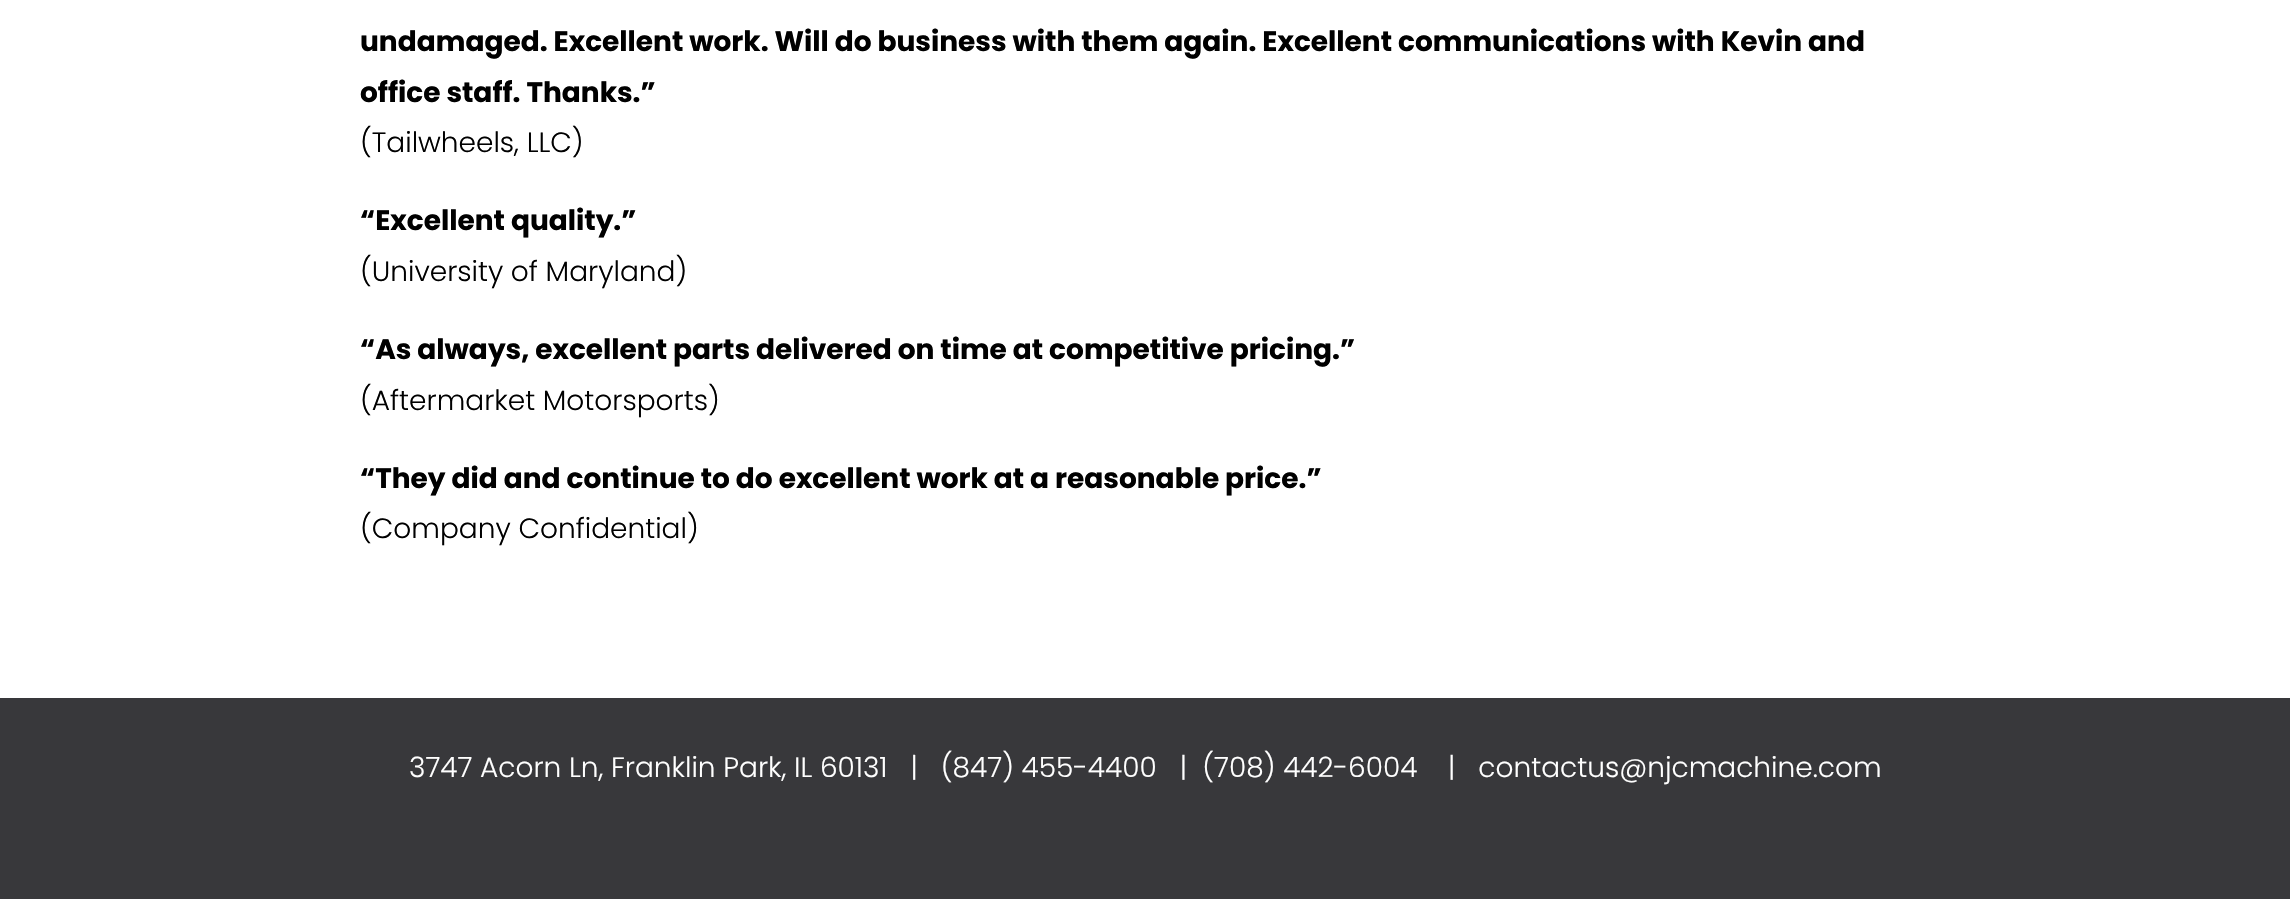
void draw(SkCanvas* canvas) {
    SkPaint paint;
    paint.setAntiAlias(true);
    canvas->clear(0xFFFFFFFF);
    SkFont font1(fontMgr->matchFamilyStyle("Poppins", SkFontStyle::Bold()), 28);
    font1.setSubpixel(true);
    paint.setColor(0xFF000000);
    canvas->drawString("undamaged. Excellent work. Will do business with them again. Excellent communications with Kevin and", 360, 51, font1, paint);
    canvas->drawString("office staff. Thanks.”", 360, 102, font1, paint);
    SkFont font2(fontMgr->matchFamilyStyle("Poppins", SkFontStyle(300, SkFontStyle::kNormal_Width, SkFontStyle::kUpright_Slant)), 28);
    font2.setSubpixel(true);
    canvas->drawString("(Tailwheels, LLC)", 360, 152, font2, paint);
    canvas->drawString("“Excellent quality.”", 360, 230, font1, paint);
    canvas->drawString("(University of Maryland)", 360, 281, font2, paint);
    canvas->drawString("“As always, excellent parts delivered on time at competitive pricing.”", 360, 359, font1, paint);
    canvas->drawString("(Aftermarket Motorsports)", 360, 410, font2, paint);
    canvas->drawString("“They did and continue to do excellent work at a reasonable price.”", 360, 488, font1, paint);
    canvas->drawString("(Company Confidential)", 360, 538, font2, paint);
    paint.setColor(0xFF38383B);
    canvas->drawRect(SkRect::MakeXYWH(0, 698, 2290, 201), paint);
    paint.setColor(0xFFFFFFFF);
    canvas->drawString("3747 Acorn Ln, Franklin Park, IL 60131   |   (847) 455-4400   |  (708) 442-6004    |   contactus@njcmachine.com", 409, 777, font2, paint);
}
